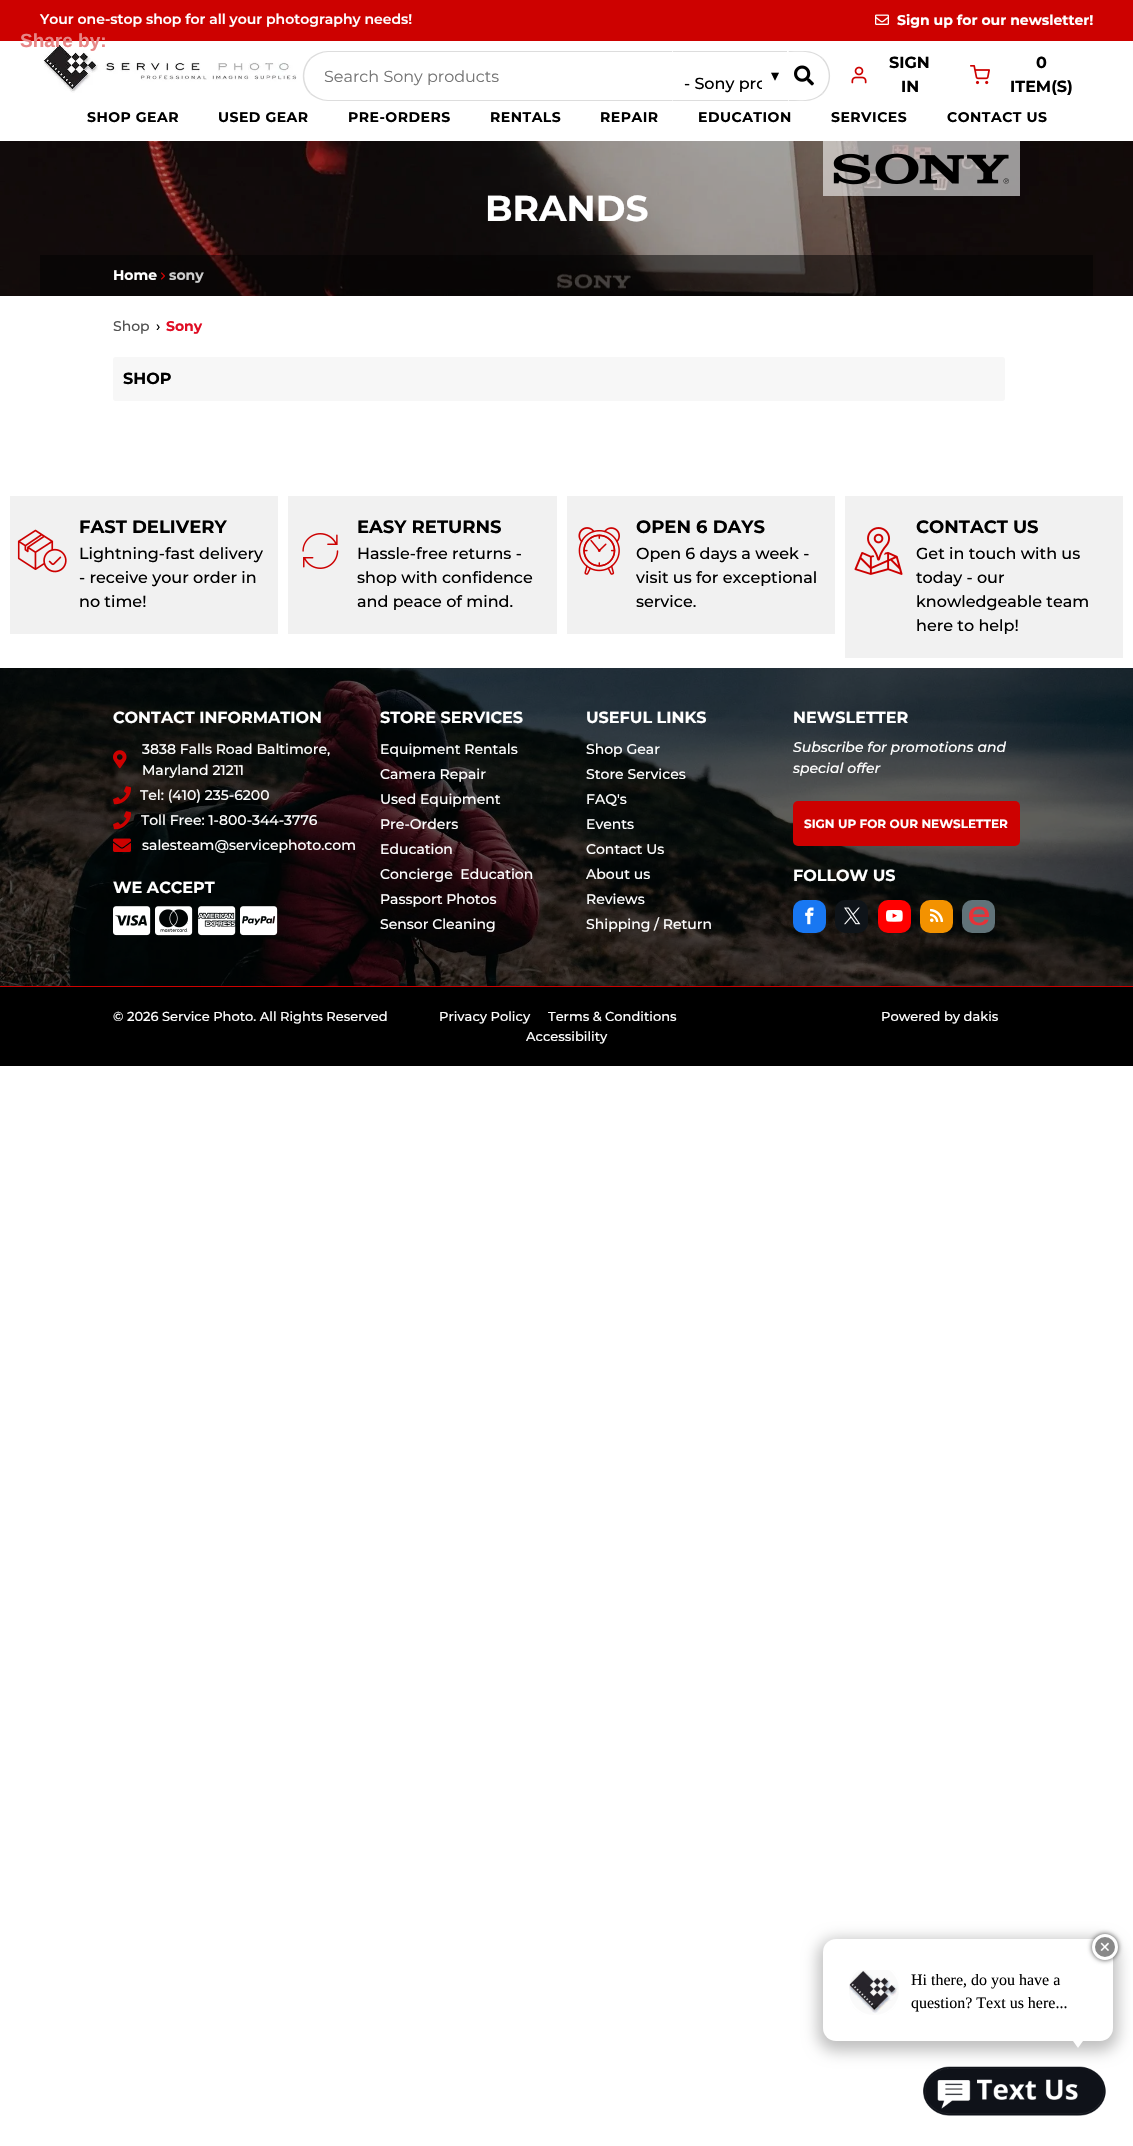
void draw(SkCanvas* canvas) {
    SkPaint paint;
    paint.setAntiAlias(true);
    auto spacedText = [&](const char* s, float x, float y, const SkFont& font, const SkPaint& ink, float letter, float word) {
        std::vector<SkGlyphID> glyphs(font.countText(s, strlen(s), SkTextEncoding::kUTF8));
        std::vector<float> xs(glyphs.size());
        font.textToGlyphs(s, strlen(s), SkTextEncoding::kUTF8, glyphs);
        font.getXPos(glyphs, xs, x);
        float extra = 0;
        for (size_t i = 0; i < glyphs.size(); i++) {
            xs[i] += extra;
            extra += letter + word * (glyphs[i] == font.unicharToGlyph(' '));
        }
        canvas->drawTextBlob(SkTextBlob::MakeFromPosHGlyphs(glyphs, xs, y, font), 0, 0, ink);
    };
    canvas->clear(0xFFFFFFFF);
    paint.setColor(0xFFCD0100);
    canvas->drawRect(SkRect::MakeXYWH(0, 0, 1133, 41), paint);
    SkFont font1(fontMgr->matchFamilyStyle("Montserrat", SkFontStyle(600, SkFontStyle::kNormal_Width, SkFontStyle::kUpright_Slant)), 14);
    font1.setSubpixel(true);
    paint.setColor(0xFFFFFFFF);
    canvas->drawString("Your one-stop shop for all your photography needs!", 40, 24, font1, paint);
    canvas->drawImageRect(SkImages::DeferredFromEncodedData(SkData::MakeFromFileName("img1.png")), SkRect::MakeXYWH(875, 14, 14, 11), SkSamplingOptions());
    SkFont font2(fontMgr->matchFamilyStyle("Montserrat", SkFontStyle::Bold()), 14);
    font2.setSubpixel(true);
    canvas->drawString("Sign up for our newsletter!", 897, 25, font2, paint);
    canvas->drawImageRect(SkImages::DeferredFromEncodedData(SkData::MakeFromFileName("img2.png")), SkRect::MakeXYWH(43, 43, 254, 50), SkSamplingOptions());
    paint.setColor(0xFFDDDDDD);
    canvas->drawPath(SkPathBuilder().moveTo(328, 51).cubicTo(321, 51, 315, 54, 310, 58).lineTo(311, 59).cubicTo(316, 55, 322, 52, 328, 52).lineTo(672, 52).lineTo(673, 51).close().detach(), paint);
    paint.setColor(0xFFFFFFFF);
    canvas->drawPath(SkPathBuilder().moveTo(673, 51).lineTo(672, 52).lineTo(672, 100).lineTo(673, 101).close().detach(), paint);
    paint.setColor(0xFFDDDDDD);
    canvas->drawPath(SkPathBuilder().moveTo(673, 101).lineTo(672, 100).lineTo(328, 100).cubicTo(322, 100, 316, 97, 311, 93).lineTo(310, 94).cubicTo(315, 98, 321, 101, 328, 101).close().detach(), paint);
    canvas->drawPath(SkPathBuilder().moveTo(310, 94).cubicTo(300.5f, 84, 300.5f, 68, 310, 58).lineTo(311, 59).cubicTo(302, 68.5f, 302, 83.5f, 311, 93).close().detach(), paint);
    SkFont font3(fontMgr->matchFamilyStyle("Montserrat", SkFontStyle::Normal()), 16);
    font3.setSubpixel(true);
    paint.setColor(0xFF757575);
    canvas->drawString("Search Sony products", 324, 82, font3, paint);
    paint.setColor(0xFFDDDDDD);
    canvas->drawRect(SkRect::MakeXYWH(673, 51, 115, 1), paint);
    paint.setColor(0xFFFFFFFF);
    canvas->drawRect(SkRect::MakeXYWH(787, 51, 1, 1), paint);
    paint.setColor(0xFFDDDDDD);
    canvas->drawRect(SkRect::MakeXYWH(673, 100, 115, 1), paint);
    canvas->save();
    canvas->clipRect(SkRect::MakeXYWH(684, 72, 78, 24));
    SkFont font4(fontMgr->matchFamilyStyle("Montserrat", SkFontStyle(500, SkFontStyle::kNormal_Width, SkFontStyle::kUpright_Slant)), 16);
    font4.setSubpixel(true);
    paint.setColor(0xFF000000);
    canvas->drawString("- Sony pro", 684, 89, font4, paint);
    canvas->restore();
    SkFont font5(fontMgr->matchFamilyStyle("DejaVu Sans", SkFontStyle::Normal()), 16);
    font5.setSubpixel(true);
    canvas->drawString("▾", 771, 81, font5, paint);
    paint.setColor(0xFFDCDCDC);
    canvas->drawPath(SkPathBuilder().moveTo(788, 51).lineTo(789, 52).cubicTo(800.5f, 52, 813, 50, 822, 59).lineTo(823, 58).cubicTo(818, 54, 812, 51, 805, 51).close().detach(), paint);
    canvas->drawPath(SkPathBuilder().moveTo(823, 58).cubicTo(832.5f, 68, 832.5f, 84, 823, 94).lineTo(822, 93).cubicTo(831, 83.5f, 831, 68.5f, 822, 59).close().detach(), paint);
    canvas->drawPath(SkPathBuilder().moveTo(805, 101).cubicTo(812, 101, 818, 98, 823, 94).lineTo(822, 93).cubicTo(813, 102, 800.5f, 100, 789, 100).lineTo(788, 101).close().detach(), paint);
    paint.setColor(0xFFFFFFFF);
    canvas->drawPath(SkPathBuilder().moveTo(789, 52).lineTo(788, 51).lineTo(788, 101).lineTo(789, 100).close().detach(), paint);
    canvas->drawImageRect(SkImages::DeferredFromEncodedData(SkData::MakeFromFileName("img3.png")), SkRect::MakeXYWH(794, 65, 20, 21), SkSamplingOptions());
    canvas->drawImageRect(SkImages::DeferredFromEncodedData(SkData::MakeFromFileName("img4.png")), SkRect::MakeXYWH(851, 66, 16, 18), SkSamplingOptions());
    SkFont font6(fontMgr->matchFamilyStyle("Montserrat", SkFontStyle::Bold()), 16);
    font6.setSubpixel(true);
    paint.setColor(0xFF000000);
    canvas->drawString("SIGN", 889, 68, font6, paint);
    canvas->drawString("IN", 901, 92, font6, paint);
    canvas->drawImageRect(SkImages::DeferredFromEncodedData(SkData::MakeFromFileName("img5.png")), SkRect::MakeXYWH(970, 65, 20, 20), SkSamplingOptions());
    canvas->drawString("0", 1036, 68, font6, paint);
    canvas->drawString("ITEM(S)", 1010, 92, font6, paint);
    spacedText("SHOP GEAR", 87, 122, font2, paint, 0.5f, 0);
    spacedText("USED GEAR", 218, 122, font2, paint, 0.5f, 0);
    spacedText("PRE-ORDERS", 348, 122, font2, paint, 0.5f, 0);
    spacedText("RENTALS", 490, 122, font2, paint, 0.5f, 0);
    spacedText("REPAIR", 600, 122, font2, paint, 0.5f, 0);
    spacedText("EDUCATION", 698, 122, font2, paint, 0.5f, 0);
    spacedText("SERVICES", 831, 122, font2, paint, 0.5f, 0);
    spacedText("CONTACT US", 947, 122, font2, paint, 0.5f, 0);
    canvas->drawImageRect(SkImages::DeferredFromEncodedData(SkData::MakeFromFileName("img6.png")), SkRect::MakeXYWH(0, 141, 1133, 155), SkSamplingOptions());
    paint.setColor(0x94FFFFFF);
    canvas->drawRect(SkRect::MakeXYWH(823, 141, 197, 55), paint);
    canvas->drawImageRect(SkImages::DeferredFromEncodedData(SkData::MakeFromFileName("img7.png")), SkRect::MakeXYWH(833, 153, 176, 32), SkSamplingOptions());
    SkFont font7(fontMgr->matchFamilyStyle("Montserrat", SkFontStyle::Bold()), 36);
    font7.setSubpixel(true);
    paint.setColor(0xFFFFFFFF);
    canvas->drawString("BRANDS", 485, 221, font7, paint);
    paint.setColor(0x80000000);
    canvas->drawRect(SkRect::MakeXYWH(40, 255, 1053, 41), paint);
    paint.setColor(0xFFFFFFFF);
    canvas->drawString("Home", 113, 280, font2, paint);
    canvas->drawImageRect(SkImages::DeferredFromEncodedData(SkData::MakeFromFileName("img8.png")), SkRect::MakeXYWH(161, 272, 4, 8), SkSamplingOptions());
    paint.setColor(0xFFCCCCCC);
    canvas->drawString("sony", 169, 280, font2, paint);
    SkFont font8(fontMgr->matchFamilyStyle("Montserrat", SkFontStyle(500, SkFontStyle::kNormal_Width, SkFontStyle::kUpright_Slant)), 14);
    font8.setSubpixel(true);
    paint.setColor(0xFF525252);
    canvas->drawString("Shop", 113, 331, font8, paint);
    paint.setColor(0xFF000000);
    canvas->drawString("›", 156, 331, font8, paint);
    paint.setColor(0xFFE00D24);
    canvas->drawString("Sony", 166, 331, font2, paint);
    paint.setColor(0xFFF7F7F7);
    canvas->drawRoundRect(SkRect::MakeXYWH(113, 357, 892, 44), 3, 3, paint);
    paint.setColor(0xFF000000);
    canvas->drawString("SHOP", 123, 384, font6, paint);
    paint.setColor(0xFFF1F1F1);
    canvas->drawRect(SkRect::MakeXYWH(10, 496, 268, 138), paint);
    canvas->drawImageRect(SkImages::DeferredFromEncodedData(SkData::MakeFromFileName("img9.png")), SkRect::MakeXYWH(17, 529, 50, 44), SkSamplingOptions());
    SkFont font9(fontMgr->matchFamilyStyle("Montserrat", SkFontStyle::Bold()), 18);
    font9.setSubpixel(true);
    paint.setColor(0xFF000000);
    canvas->drawString("FAST DELIVERY", 79, 533, font9, paint);
    canvas->drawString("Lightning-fast delivery", 79, 559, font4, paint);
    canvas->drawString("- receive your order in", 79, 583, font4, paint);
    canvas->drawString("no time!", 79, 607, font4, paint);
    paint.setColor(0xFFF1F1F1);
    canvas->drawRect(SkRect::MakeXYWH(288, 496, 269, 138), paint);
    canvas->drawImageRect(SkImages::DeferredFromEncodedData(SkData::MakeFromFileName("img10.png")), SkRect::MakeXYWH(302, 533, 37, 36), SkSamplingOptions());
    paint.setColor(0xFF000000);
    canvas->drawString("EASY RETURNS", 357, 533, font9, paint);
    canvas->drawString("Hassle-free returns -", 357, 559, font4, paint);
    canvas->drawString("shop with confidence", 357, 583, font4, paint);
    canvas->drawString("and peace of mind.", 357, 607, font4, paint);
    paint.setColor(0xFFF1F1F1);
    canvas->drawRect(SkRect::MakeXYWH(567, 496, 268, 138), paint);
    canvas->drawImageRect(SkImages::DeferredFromEncodedData(SkData::MakeFromFileName("img11.png")), SkRect::MakeXYWH(578, 527, 42, 48), SkSamplingOptions());
    paint.setColor(0xFF000000);
    canvas->drawString("OPEN 6 DAYS", 636, 533, font9, paint);
    canvas->drawString("Open 6 days a week -", 636, 559, font4, paint);
    canvas->drawString("visit us for exceptional", 636, 583, font4, paint);
    canvas->drawString("service.", 636, 607, font4, paint);
    paint.setColor(0xFFF1F1F1);
    canvas->drawRect(SkRect::MakeXYWH(845, 496, 278, 162), paint);
    canvas->drawImageRect(SkImages::DeferredFromEncodedData(SkData::MakeFromFileName("img12.png")), SkRect::MakeXYWH(854, 527, 49, 48), SkSamplingOptions());
    paint.setColor(0xFF000000);
    canvas->drawString("CONTACT US", 916, 533, font9, paint);
    canvas->drawString("Get in touch with us", 916, 559, font4, paint);
    canvas->drawString("today - our", 916, 583, font4, paint);
    canvas->drawString("knowledgeable team", 916, 607, font4, paint);
    canvas->drawString("here to help!", 916, 631, font4, paint);
    canvas->drawImageRect(SkImages::DeferredFromEncodedData(SkData::MakeFromFileName("img13.png")), SkRect::MakeXYWH(0, 668, 1133, 318), SkSamplingOptions());
    paint.setColor(0xFFFFFFFF);
    canvas->drawString("CONTACT INFORMATION", 113, 723, font6, paint);
    canvas->drawImageRect(SkImages::DeferredFromEncodedData(SkData::MakeFromFileName("img14.png")), SkRect::MakeXYWH(113, 750, 14, 19), SkSamplingOptions());
    canvas->drawString("3838 Falls Road Baltimore,", 142, 754, font8, paint);
    canvas->drawString("Maryland 21211", 142, 775, font8, paint);
    canvas->drawImageRect(SkImages::DeferredFromEncodedData(SkData::MakeFromFileName("img15.png")), SkRect::MakeXYWH(113, 786, 18, 19), SkSamplingOptions());
    canvas->drawString("Tel: (410) 235-6200", 140, 800, font8, paint);
    canvas->drawImageRect(SkImages::DeferredFromEncodedData(SkData::MakeFromFileName("img16.png")), SkRect::MakeXYWH(113, 811, 18, 19), SkSamplingOptions());
    canvas->drawString("Toll Free: 1-800-344-3776", 141, 825, font8, paint);
    canvas->drawImageRect(SkImages::DeferredFromEncodedData(SkData::MakeFromFileName("img17.png")), SkRect::MakeXYWH(113, 838, 18, 14), SkSamplingOptions());
    canvas->drawString("salesteam@servicephoto.com", 142, 850, font8, paint);
    canvas->drawString("WE ACCEPT", 113, 893, font6, paint);
    canvas->drawImageRect(SkImages::DeferredFromEncodedData(SkData::MakeFromFileName("img18.png")), SkRect::MakeXYWH(113, 906, 38, 30), SkSamplingOptions());
    canvas->drawImageRect(SkImages::DeferredFromEncodedData(SkData::MakeFromFileName("img19.png")), SkRect::MakeXYWH(155, 906, 38, 30), SkSamplingOptions());
    canvas->drawImageRect(SkImages::DeferredFromEncodedData(SkData::MakeFromFileName("img20.png")), SkRect::MakeXYWH(198, 906, 38, 30), SkSamplingOptions());
    canvas->drawImageRect(SkImages::DeferredFromEncodedData(SkData::MakeFromFileName("img21.png")), SkRect::MakeXYWH(240, 906, 38, 30), SkSamplingOptions());
    canvas->drawString("STORE SERVICES", 380, 723, font6, paint);
    canvas->drawString("Equipment Rentals", 380, 754, font8, paint);
    canvas->drawString("Camera Repair", 380, 779, font8, paint);
    canvas->drawString("Used Equipment", 380, 804, font8, paint);
    canvas->drawString("Pre-Orders", 380, 829, font8, paint);
    canvas->drawString("Education", 380, 854, font8, paint);
    canvas->drawString("Concierge  Education", 380, 879, font8, paint);
    canvas->drawString("Passport Photos", 380, 904, font8, paint);
    canvas->drawString("Sensor Cleaning", 380, 929, font8, paint);
    canvas->drawString("USEFUL LINKS", 586, 723, font6, paint);
    canvas->drawString("Shop Gear", 586, 754, font8, paint);
    canvas->drawString("Store Services", 586, 779, font8, paint);
    canvas->drawString("FAQ's", 586, 804, font8, paint);
    canvas->drawString("Events", 586, 829, font8, paint);
    canvas->drawString("Contact Us", 586, 854, font8, paint);
    canvas->drawString("About us", 586, 879, font8, paint);
    canvas->drawString("Reviews", 586, 904, font8, paint);
    canvas->drawString("Shipping / Return", 586, 929, font8, paint);
    canvas->drawString("NEWSLETTER", 793, 723, font6, paint);
    SkFont font10(fontMgr->matchFamilyStyle("Montserrat", SkFontStyle(500, SkFontStyle::kNormal_Width, SkFontStyle::kItalic_Slant)), 14);
    font10.setSubpixel(true);
    canvas->drawString("Subscribe for promotions and", 793, 752, font10, paint);
    canvas->drawString("special offer", 793, 773, font10, paint);
    paint.setColor(0xFFCD0100);
    canvas->drawRoundRect(SkRect::MakeXYWH(793, 801, 227, 45), 5, 5, paint);
    SkFont font11(fontMgr->matchFamilyStyle("Montserrat", SkFontStyle::Bold()), 12);
    font11.setSubpixel(true);
    paint.setColor(0xFFFFFFFF);
    canvas->drawString("SIGN UP FOR OUR NEWSLETTER", 804, 828, font11, paint);
    canvas->drawString("FOLLOW US", 793, 881, font6, paint);
    paint.setColor(0xFF1877F2);
    canvas->drawRoundRect(SkRect::MakeXYWH(793, 900, 33, 33), 10, 10, paint);
    canvas->drawImageRect(SkImages::DeferredFromEncodedData(SkData::MakeFromFileName("img22.png")), SkRect::MakeXYWH(805, 907, 9, 18), SkSamplingOptions());
    paint.setColor(0xFF0F1419);
    canvas->drawRoundRect(SkRect::MakeXYWH(835, 900, 33, 33), 10, 10, paint);
    canvas->drawImageRect(SkImages::DeferredFromEncodedData(SkData::MakeFromFileName("img23.png")), SkRect::MakeXYWH(844, 907, 17, 18), SkSamplingOptions());
    paint.setColor(0xFFFF0000);
    canvas->drawRoundRect(SkRect::MakeXYWH(878, 900, 33, 33), 10, 10, paint);
    canvas->drawImageRect(SkImages::DeferredFromEncodedData(SkData::MakeFromFileName("img24.png")), SkRect::MakeXYWH(886, 910, 17, 12), SkSamplingOptions());
    paint.setColor(0xFFF39200);
    canvas->drawRoundRect(SkRect::MakeXYWH(920, 900, 33, 33), 10, 10, paint);
    canvas->drawImageRect(SkImages::DeferredFromEncodedData(SkData::MakeFromFileName("img25.png")), SkRect::MakeXYWH(930, 908, 14, 14), SkSamplingOptions());
    paint.setColor(0xFF617379);
    canvas->drawRoundRect(SkRect::MakeXYWH(962, 900, 33, 33), 10, 10, paint);
    canvas->drawImageRect(SkImages::DeferredFromEncodedData(SkData::MakeFromFileName("img26.png")), SkRect::MakeXYWH(969, 906, 20, 20), SkSamplingOptions());
    paint.setColor(0xFF000000);
    canvas->drawRect(SkRect::MakeXYWH(0, 987, 1133, 79), paint);
    paint.setColor(0xFFCD0100);
    canvas->drawRect(SkRect::MakeXYWH(0, 986, 1133, 1), paint);
    SkFont font12(fontMgr->matchFamilyStyle("Montserrat", SkFontStyle(500, SkFontStyle::kNormal_Width, SkFontStyle::kUpright_Slant)), 13);
    font12.setSubpixel(true);
    paint.setColor(0xFFFFFFFF);
    canvas->drawString("© 2026 Service Photo. All Rights Reserved", 113, 1021, font12, paint);
    canvas->drawString("Privacy Policy", 439, 1021, font12, paint);
    canvas->drawString("Terms & Conditions", 548, 1021, font12, paint);
    canvas->drawString("Accessibility", 526, 1041, font12, paint);
    canvas->drawString("Powered by dakis", 881, 1021, font12, paint);
    SkFont font13(fontMgr->matchFamilyStyle("Liberation Sans", SkFontStyle::Bold()), 19);
    font13.setSubpixel(true);
    paint.setColor(0xFFE78686);
    canvas->drawString("Share by:", 20, 47, font13, paint);
    canvas->drawImageRect(SkImages::DeferredFromEncodedData(SkData::MakeFromFileName("img28.png")), SkRect::MakeXYWH(923, 2066, 183, 50), SkSamplingOptions());
    paint.setColor(0x40000000);
    paint.setMaskFilter(SkMaskFilter::MakeBlur(kNormal_SkBlurStyle, 7.5f));
    canvas->drawRoundRect(SkRect::MakeXYWH(818, 1939, 300, 112), 18, 18, paint);
    paint.setMaskFilter(nullptr);
    paint.setColor(0xFFFFFFFF);
    canvas->drawRoundRect(SkRect::MakeXYWH(823, 1939, 290, 102), 13, 13, paint);
    paint.setColor(0xB3000000);
    paint.setMaskFilter(SkMaskFilter::MakeBlur(kNormal_SkBlurStyle, 2.5f));
    canvas->drawRoundRect(SkRect::MakeXYWH(1092, 1934, 26, 26), 13, 13, paint);
    paint.setMaskFilter(nullptr);
    paint.setColor(0xFF888888);
    canvas->drawCircle(1105, 1947, 11.5f, paint);
    paint.setStyle(SkPaint::kStroke_Style);
    paint.setStrokeWidth(3);
    paint.setColor(0xFFFFFFFF);
    canvas->drawCircle(1105, 1947, 11.5f, paint);
    SkFont font14(fontMgr->matchFamilyStyle("DejaVu Sans", SkFontStyle::Normal()), 14);
    font14.setSubpixel(true);
    paint.setStyle(SkPaint::kFill_Style);
    canvas->drawString("✕", 1099, 1952, font14, paint);
    canvas->drawImageRect(SkImages::DeferredFromEncodedData(SkData::MakeFromFileName("img27.png")), SkRect::MakeXYWH(849, 1970, 50, 45), SkSamplingOptions());
    paint.setStyle(SkPaint::kStroke_Style);
    paint.setStrokeWidth(2);
    canvas->drawCircle(874, 1990, 26, paint);
    SkFont font15(fontMgr->matchFamilyStyle("Liberation Serif", SkFontStyle::Normal()), 16);
    font15.setSubpixel(true);
    paint.setStyle(SkPaint::kFill_Style);
    paint.setColor(0xFF000000);
    canvas->drawString("Hi there, do you have a", 911, 1985, font15, paint);
    canvas->drawString("question? Text us here...", 911, 2008, font15, paint);
    paint.setColor(0xFFFFFFFF);
    canvas->drawPath(SkPathBuilder().moveTo(1073, 2041).lineTo(1083, 2041).lineTo(1078, 2048).close().detach(), paint);
}
